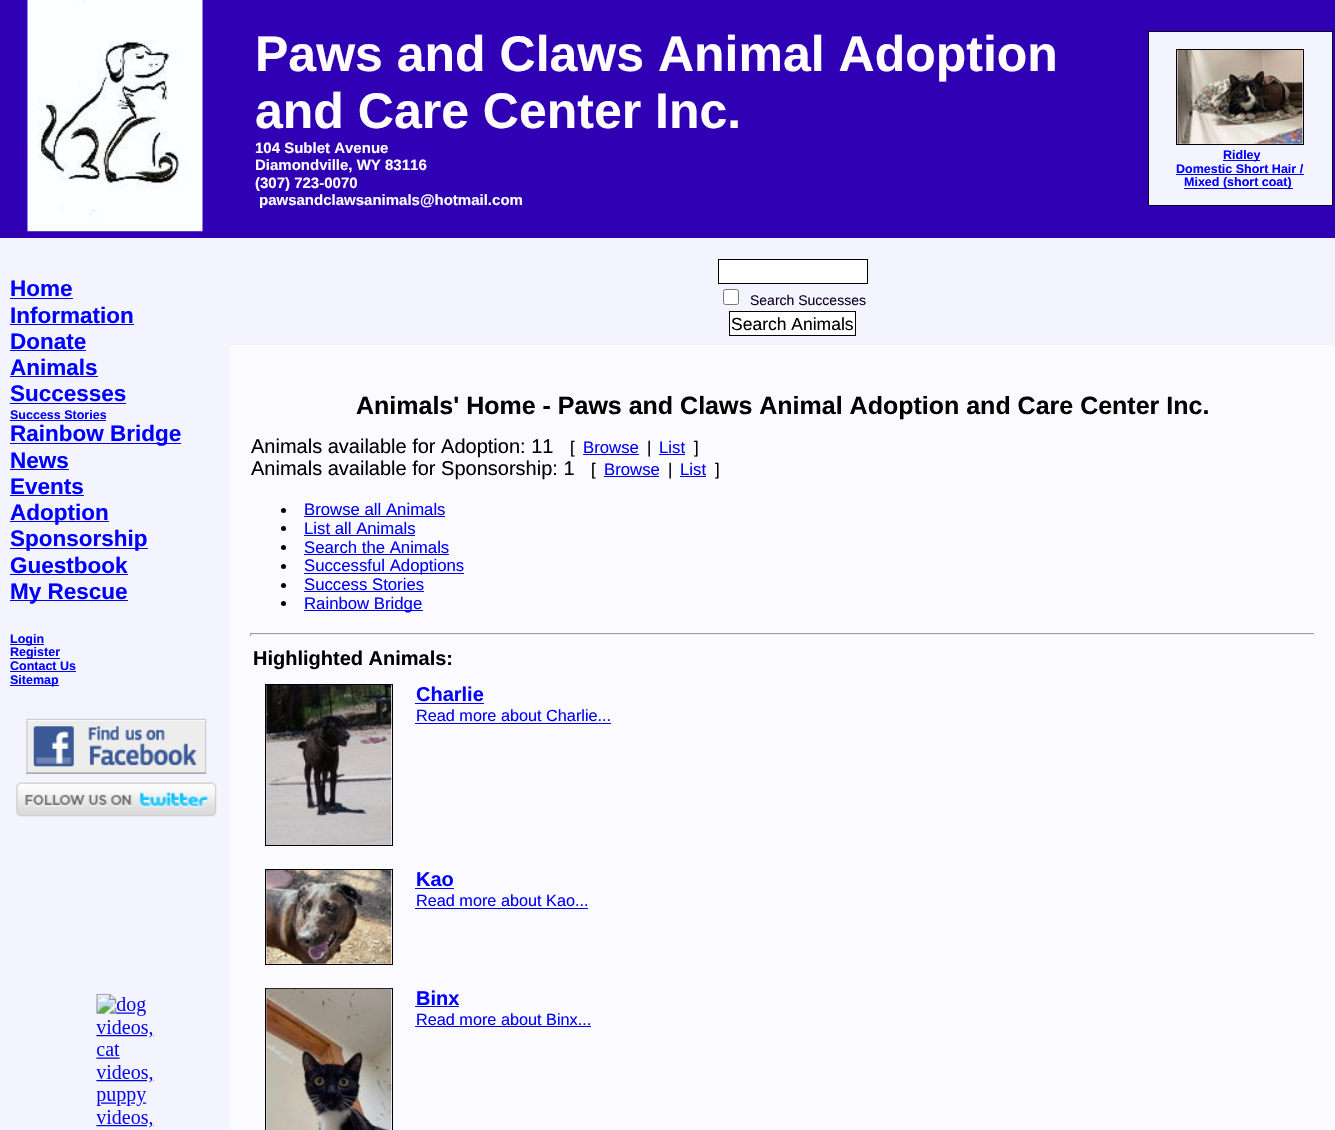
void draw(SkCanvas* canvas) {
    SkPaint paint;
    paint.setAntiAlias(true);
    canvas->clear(0xFFFAFAFF);
    paint.setColor(0xFF3000B5);
    canvas->drawRect(SkRect::MakeXYWH(0, 0, 1335, 235), paint);
    canvas->drawImageRect(SkImages::DeferredFromEncodedData(SkData::MakeFromFileName("img1.png")), SkRect::MakeXYWH(27, 0, 176, 232), SkSamplingOptions());
    SkFont font1(fontMgr->matchFamilyStyle("Liberation Sans", SkFontStyle::Bold()), 50);
    font1.setSubpixel(true);
    paint.setColor(0xFFFDFDFD);
    canvas->drawString("Paws and Claws Animal Adoption", 255, 71, font1, paint);
    canvas->drawString("and Care Center Inc.", 255, 128, font1, paint);
    SkFont font2(fontMgr->matchFamilyStyle("Liberation Sans", SkFontStyle::Bold()), 15);
    font2.setSubpixel(true);
    canvas->drawString("104 Sublet Avenue", 255, 153, font2, paint);
    canvas->drawString("Diamondville, WY 83116", 255, 170, font2, paint);
    canvas->drawString("(307) 723-0070", 255, 188, font2, paint);
    canvas->drawString("pawsandclawsanimals@hotmail.com", 259, 205, font2, paint);
    paint.setColor(0xFFF4F4FF);
    canvas->drawRect(SkRect::MakeXYWH(1148.5f, 31.5f, 184, 174), paint);
    paint.setStyle(SkPaint::kStroke_Style);
    paint.setStrokeWidth(1);
    paint.setColor(0xFF0D0025);
    canvas->drawRect(SkRect::MakeXYWH(1148.5f, 31.5f, 184, 174), paint);
    paint.setColor(0xFF000000);
    canvas->drawRect(SkRect::MakeXYWH(1176.5f, 49.5f, 127, 95), paint);
    canvas->drawImageRect(SkImages::DeferredFromEncodedData(SkData::MakeFromFileName("img2.png")), SkRect::MakeXYWH(1177, 50, 126, 94), SkSamplingOptions());
    paint.setStyle(SkPaint::kFill_Style);
    paint.setColor(0xFF0000FF);
    canvas->drawRect(SkRect::MakeXYWH(1223, 160, 37, 1), paint);
    SkFont font3(fontMgr->matchFamilyStyle("Liberation Sans", SkFontStyle::Bold()), 12.5f);
    font3.setSubpixel(true);
    canvas->drawString("Ridley", 1223, 159, font3, paint);
    canvas->drawString("Domestic Short Hair /", 1176, 173, font3, paint);
    canvas->drawRect(SkRect::MakeXYWH(1176, 174, 128, 1), paint);
    canvas->drawRect(SkRect::MakeXYWH(1184, 188, 109, 1), paint);
    canvas->drawString("Mixed (short coat)", 1184, 186, font3, paint);
    paint.setColor(0xFFF4F4FF);
    canvas->drawRect(SkRect::MakeXYWH(0, 238, 230, 892), paint);
    paint.setColor(0xFF3000B5);
    canvas->drawRect(SkRect::MakeXYWH(0, 235, 1335, 3), paint);
    SkFont font4(fontMgr->matchFamilyStyle("Liberation Sans", SkFontStyle::Bold()), 22.5f);
    font4.setSubpixel(true);
    paint.setColor(0xFF0000FF);
    canvas->drawString("Home", 10, 296, font4, paint);
    canvas->drawRect(SkRect::MakeXYWH(10, 298, 63, 1), paint);
    canvas->drawString("Information", 10, 323, font4, paint);
    canvas->drawRect(SkRect::MakeXYWH(10, 324, 124, 1), paint);
    canvas->drawString("Donate", 10, 349, font4, paint);
    canvas->drawRect(SkRect::MakeXYWH(10, 350, 76, 1), paint);
    canvas->drawString("Animals", 10, 375, font4, paint);
    canvas->drawRect(SkRect::MakeXYWH(10, 376, 88, 1), paint);
    canvas->drawString("Successes", 10, 401, font4, paint);
    canvas->drawRect(SkRect::MakeXYWH(10, 403, 116, 1), paint);
    canvas->drawString("Success Stories", 10, 419, font3, paint);
    canvas->drawRect(SkRect::MakeXYWH(10, 420, 96, 1), paint);
    canvas->drawRect(SkRect::MakeXYWH(10, 443, 171, 1), paint);
    canvas->drawString("Rainbow Bridge", 10, 441, font4, paint);
    canvas->drawString("News", 10, 468, font4, paint);
    canvas->drawRect(SkRect::MakeXYWH(10, 469, 59, 1), paint);
    canvas->drawString("Events", 10, 494, font4, paint);
    canvas->drawRect(SkRect::MakeXYWH(10, 495, 74, 1), paint);
    canvas->drawRect(SkRect::MakeXYWH(10, 521, 99, 1), paint);
    canvas->drawString("Adoption", 10, 520, font4, paint);
    canvas->drawRect(SkRect::MakeXYWH(10, 548, 138, 1), paint);
    canvas->drawString("Sponsorship", 10, 546, font4, paint);
    canvas->drawString("Guestbook", 10, 573, font4, paint);
    canvas->drawRect(SkRect::MakeXYWH(10, 574, 118, 1), paint);
    canvas->drawRect(SkRect::MakeXYWH(10, 600, 118, 1), paint);
    canvas->drawString("My Rescue", 10, 599, font4, paint);
    canvas->drawRect(SkRect::MakeXYWH(10, 644, 34, 1), paint);
    canvas->drawString("Login", 10, 643, font3, paint);
    canvas->drawRect(SkRect::MakeXYWH(10, 658, 50, 1), paint);
    canvas->drawString("Register", 10, 656, font3, paint);
    canvas->drawString("Contact Us", 10, 670, font3, paint);
    canvas->drawRect(SkRect::MakeXYWH(10, 671, 66, 1), paint);
    canvas->drawRect(SkRect::MakeXYWH(10, 685, 49, 1), paint);
    canvas->drawString("Sitemap", 10, 684, font3, paint);
    canvas->drawImageRect(SkImages::DeferredFromEncodedData(SkData::MakeFromFileName("img3.png")), SkRect::MakeXYWH(26, 718, 181, 56), SkSamplingOptions());
    canvas->drawImageRect(SkImages::DeferredFromEncodedData(SkData::MakeFromFileName("img4.png")), SkRect::MakeXYWH(16, 782, 201, 35), SkSamplingOptions());
    canvas->drawImageRect(SkImages::DeferredFromEncodedData(SkData::MakeFromFileName("img5.png")), SkRect::MakeXYWH(96, 993, 58, 135), SkSamplingOptions());
    paint.setColor(0xFFF4F4FF);
    canvas->drawRect(SkRect::MakeXYWH(230, 238, 1105, 107), paint);
    paint.setColor(0xFFFFFFFF);
    canvas->drawRect(SkRect::MakeXYWH(718.5f, 259.5f, 149, 24), paint);
    paint.setStyle(SkPaint::kStroke_Style);
    paint.setColor(0xFF000000);
    canvas->drawRect(SkRect::MakeXYWH(718.5f, 259.5f, 149, 24), paint);
    paint.setStyle(SkPaint::kFill_Style);
    paint.setColor(0xFFFFFFFF);
    canvas->drawRoundRect(SkRect::MakeXYWH(723.5f, 289.5f, 15, 15), 2, 2, paint);
    paint.setStyle(SkPaint::kStroke_Style);
    paint.setColor(0xFF767676);
    canvas->drawRoundRect(SkRect::MakeXYWH(723.5f, 289.5f, 15, 15), 2, 2, paint);
    SkFont font5(fontMgr->matchFamilyStyle("Liberation Sans", SkFontStyle::Normal()), 14);
    font5.setSubpixel(true);
    paint.setStyle(SkPaint::kFill_Style);
    paint.setColor(0xFF0D0025);
    canvas->drawString("Search Successes", 750, 305, font5, paint);
    paint.setColor(0xFFFFFFFF);
    canvas->drawRect(SkRect::MakeXYWH(729.5f, 311.5f, 126, 24), paint);
    paint.setStyle(SkPaint::kStroke_Style);
    paint.setColor(0xFF000000);
    canvas->drawRect(SkRect::MakeXYWH(729.5f, 311.5f, 126, 24), paint);
    SkFont font6(fontMgr->matchFamilyStyle("Liberation Sans", SkFontStyle::Normal()), 17.5f);
    font6.setSubpixel(true);
    paint.setStyle(SkPaint::kFill_Style);
    canvas->drawString("Search Animals", 731, 330, font6, paint);
    SkFont font7(fontMgr->matchFamilyStyle("Liberation Sans", SkFontStyle::Bold()), 25);
    font7.setSubpixel(true);
    canvas->drawString("Animals' Home - Paws and Claws Animal Adoption and Care Center Inc.", 356, 414, font7, paint);
    SkFont font8(fontMgr->matchFamilyStyle("Liberation Sans", SkFontStyle::Normal()), 20);
    font8.setSubpixel(true);
    canvas->drawString("Animals available for Adoption: 11", 251, 453, font8, paint);
    SkFont font9(fontMgr->matchFamilyStyle("Liberation Sans", SkFontStyle::Normal()), 16.75f);
    font9.setSubpixel(true);
    canvas->drawString("[", 570, 453, font9, paint);
    paint.setColor(0xFF0000FF);
    canvas->drawString("Browse", 583, 453, font9, paint);
    canvas->drawRect(SkRect::MakeXYWH(583, 454, 56, 1), paint);
    paint.setColor(0xFF000000);
    canvas->drawString("|", 647, 453, font9, paint);
    paint.setColor(0xFF0000FF);
    canvas->drawString("List", 659, 453, font9, paint);
    canvas->drawRect(SkRect::MakeXYWH(659, 454, 26, 1), paint);
    paint.setColor(0xFF000000);
    canvas->drawString("]", 694, 453, font9, paint);
    canvas->drawString("Animals available for Sponsorship: 1", 251, 475, font8, paint);
    canvas->drawString("[", 591, 475, font9, paint);
    paint.setColor(0xFF0000FF);
    canvas->drawString("Browse", 604, 475, font9, paint);
    canvas->drawRect(SkRect::MakeXYWH(604, 476, 55, 1), paint);
    paint.setColor(0xFF000000);
    canvas->drawString("|", 668, 475, font9, paint);
    paint.setColor(0xFF0000FF);
    canvas->drawString("List", 680, 475, font9, paint);
    canvas->drawRect(SkRect::MakeXYWH(680, 476, 26, 1), paint);
    paint.setColor(0xFF000000);
    canvas->drawString("]", 715, 475, font9, paint);
    canvas->drawCircle(283.5f, 510.5f, 2.5f, paint);
    paint.setColor(0xFF0000FF);
    canvas->drawString("Browse all Animals", 304, 515, font9, paint);
    canvas->drawRect(SkRect::MakeXYWH(304, 516, 141, 1), paint);
    paint.setColor(0xFF000000);
    canvas->drawCircle(283.5f, 528.5f, 2.5f, paint);
    paint.setColor(0xFF0000FF);
    canvas->drawString("List all Animals", 304, 534, font9, paint);
    canvas->drawRect(SkRect::MakeXYWH(304, 535, 111, 1), paint);
    paint.setColor(0xFF000000);
    canvas->drawCircle(283.5f, 547.5f, 2.5f, paint);
    paint.setColor(0xFF0000FF);
    canvas->drawString("Search the Animals", 304, 553, font9, paint);
    canvas->drawRect(SkRect::MakeXYWH(304, 554, 145, 1), paint);
    paint.setColor(0xFF000000);
    canvas->drawCircle(283.5f, 566.5f, 2.5f, paint);
    paint.setColor(0xFF0000FF);
    canvas->drawRect(SkRect::MakeXYWH(304, 573, 160, 1), paint);
    canvas->drawString("Successful Adoptions", 304, 571, font9, paint);
    paint.setColor(0xFF000000);
    canvas->drawCircle(283.5f, 585.5f, 2.5f, paint);
    paint.setColor(0xFF0000FF);
    canvas->drawString("Success Stories", 304, 590, font9, paint);
    canvas->drawRect(SkRect::MakeXYWH(304, 591, 120, 1), paint);
    paint.setColor(0xFF000000);
    canvas->drawCircle(283.5f, 603.5f, 2.5f, paint);
    paint.setColor(0xFF0000FF);
    canvas->drawRect(SkRect::MakeXYWH(304, 610, 119, 1), paint);
    canvas->drawString("Rainbow Bridge", 304, 609, font9, paint);
    paint.setColor(0xFF9F9F9F);
    canvas->drawRect(SkRect::MakeXYWH(250, 633, 1065, 1), paint);
    paint.setColor(0xFFEEEEEE);
    canvas->drawRect(SkRect::MakeXYWH(1314, 633, 1, 3), paint);
    canvas->drawRect(SkRect::MakeXYWH(250, 634, 1065, 1), paint);
    paint.setColor(0xFF9F9F9F);
    canvas->drawRect(SkRect::MakeXYWH(250, 633, 1, 3), paint);
    SkFont font10(fontMgr->matchFamilyStyle("Liberation Sans", SkFontStyle::Bold()), 20);
    font10.setSubpixel(true);
    paint.setColor(0xFF000000);
    canvas->drawString("Highlighted Animals:", 253, 665, font10, paint);
    paint.setStyle(SkPaint::kStroke_Style);
    canvas->drawRect(SkRect::MakeXYWH(265.5f, 684.5f, 127, 161), paint);
    canvas->drawImageRect(SkImages::DeferredFromEncodedData(SkData::MakeFromFileName("img6.png")), SkRect::MakeXYWH(266, 685, 126, 160), SkSamplingOptions());
    paint.setStyle(SkPaint::kFill_Style);
    paint.setColor(0xFF0000FF);
    canvas->drawString("Charlie", 416, 701, font10, paint);
    canvas->drawRect(SkRect::MakeXYWH(415, 703, 69, 1), paint);
    SkFont font11(fontMgr->matchFamilyStyle("Liberation Sans", SkFontStyle::Normal()), 16.25f);
    font11.setSubpixel(true);
    canvas->drawString("Read more about Charlie...", 416, 721, font11, paint);
    canvas->drawRect(SkRect::MakeXYWH(415, 723, 196, 1), paint);
    paint.setStyle(SkPaint::kStroke_Style);
    paint.setColor(0xFF000000);
    canvas->drawRect(SkRect::MakeXYWH(265.5f, 869.5f, 127, 95), paint);
    canvas->drawImageRect(SkImages::DeferredFromEncodedData(SkData::MakeFromFileName("img7.png")), SkRect::MakeXYWH(266, 870, 126, 94), SkSamplingOptions());
    paint.setStyle(SkPaint::kFill_Style);
    paint.setColor(0xFF0000FF);
    canvas->drawString("Kao", 416, 886, font10, paint);
    canvas->drawRect(SkRect::MakeXYWH(415, 888, 39, 1), paint);
    canvas->drawString("Read more about Kao...", 416, 906, font11, paint);
    canvas->drawRect(SkRect::MakeXYWH(415, 908, 173, 1), paint);
    paint.setStyle(SkPaint::kStroke_Style);
    paint.setColor(0xFF000000);
    canvas->drawRect(SkRect::MakeXYWH(265.5f, 988.5f, 127, 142), paint);
    canvas->drawImageRect(SkImages::DeferredFromEncodedData(SkData::MakeFromFileName("img8.png")), SkRect::MakeXYWH(266, 988, 126, 142), SkSamplingOptions());
    paint.setStyle(SkPaint::kFill_Style);
    paint.setColor(0xFF0000FF);
    canvas->drawString("Binx", 416, 1005, font10, paint);
    canvas->drawRect(SkRect::MakeXYWH(415, 1006, 44, 1), paint);
    canvas->drawString("Read more about Binx...", 416, 1025, font11, paint);
    canvas->drawRect(SkRect::MakeXYWH(415, 1026, 176, 1), paint);
}
